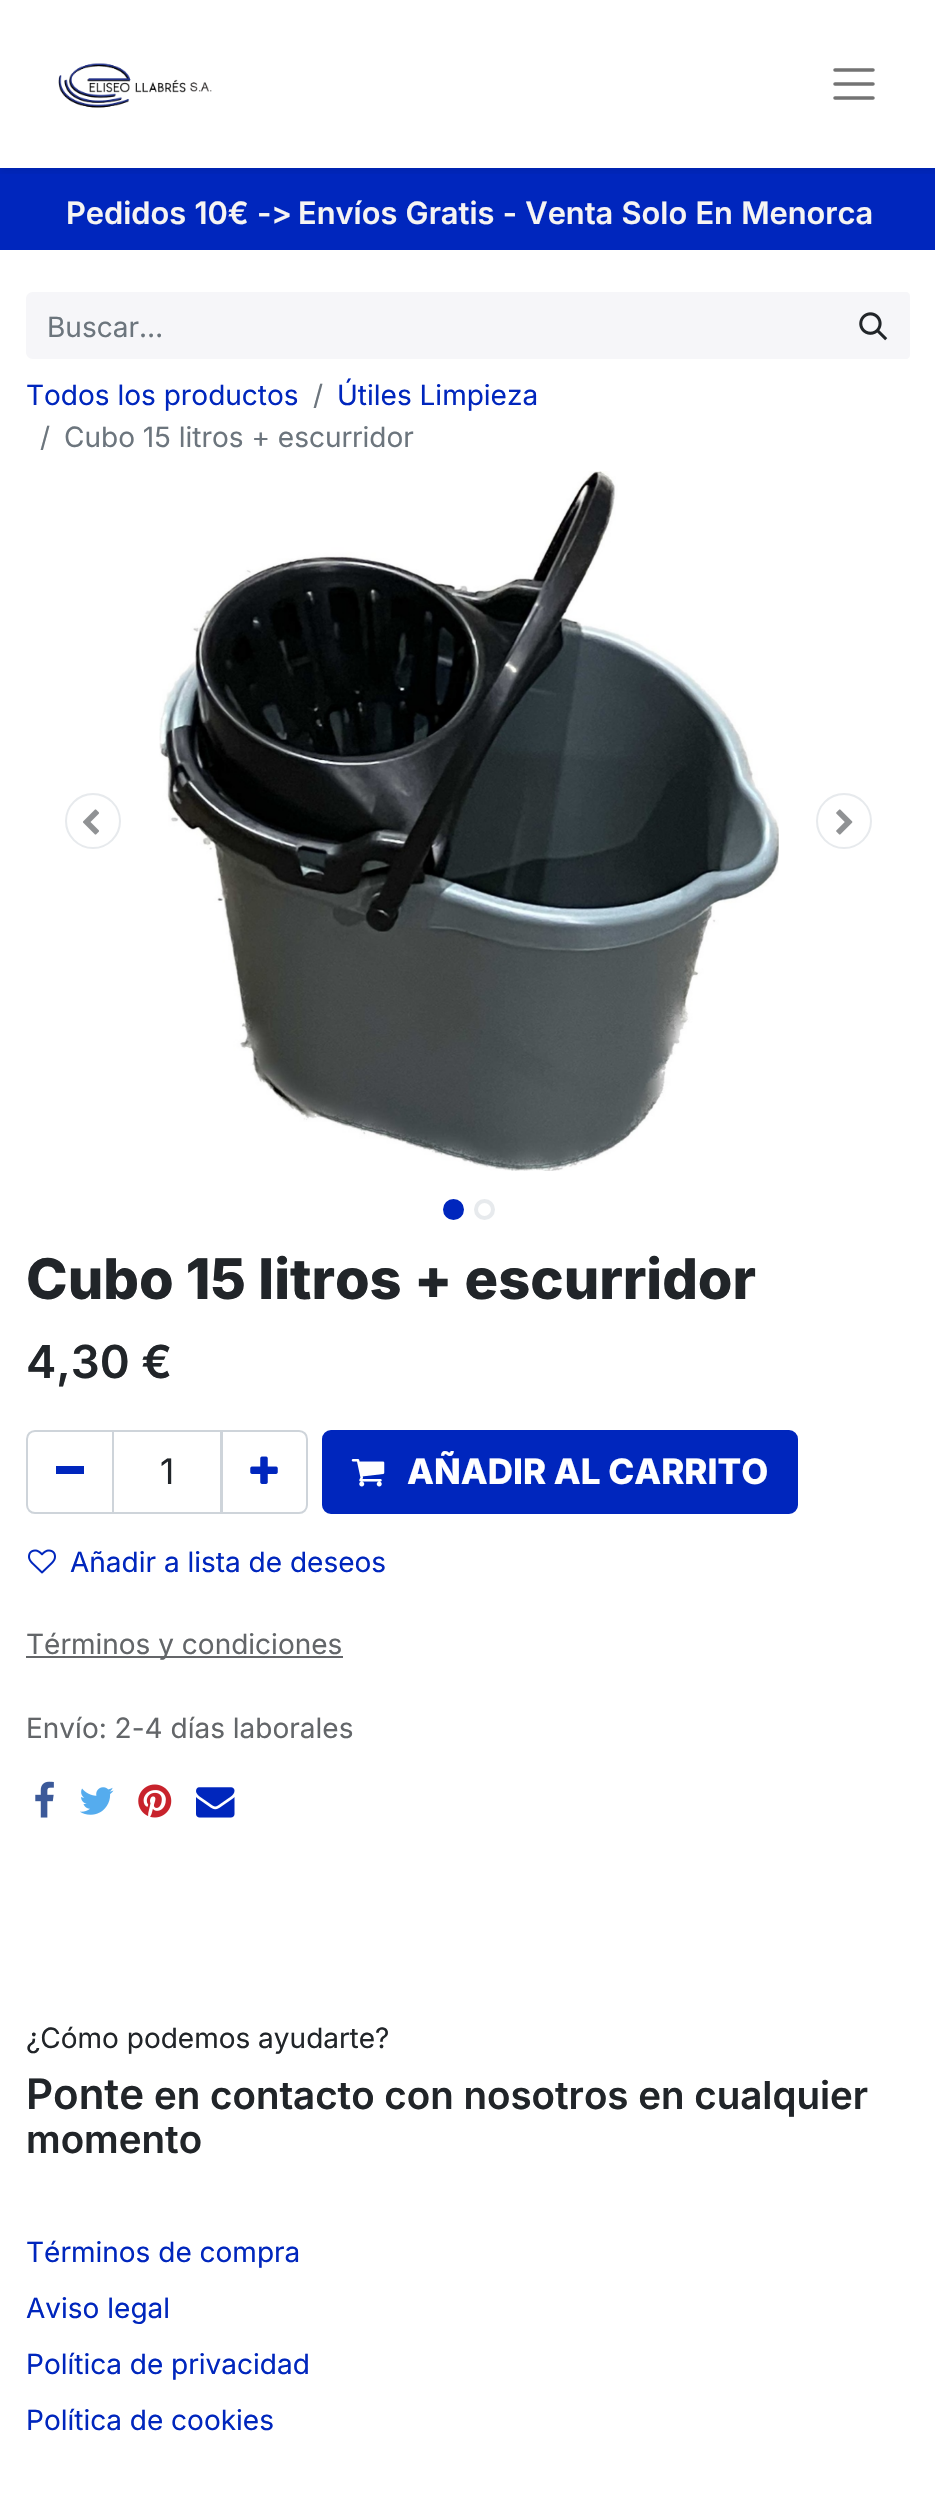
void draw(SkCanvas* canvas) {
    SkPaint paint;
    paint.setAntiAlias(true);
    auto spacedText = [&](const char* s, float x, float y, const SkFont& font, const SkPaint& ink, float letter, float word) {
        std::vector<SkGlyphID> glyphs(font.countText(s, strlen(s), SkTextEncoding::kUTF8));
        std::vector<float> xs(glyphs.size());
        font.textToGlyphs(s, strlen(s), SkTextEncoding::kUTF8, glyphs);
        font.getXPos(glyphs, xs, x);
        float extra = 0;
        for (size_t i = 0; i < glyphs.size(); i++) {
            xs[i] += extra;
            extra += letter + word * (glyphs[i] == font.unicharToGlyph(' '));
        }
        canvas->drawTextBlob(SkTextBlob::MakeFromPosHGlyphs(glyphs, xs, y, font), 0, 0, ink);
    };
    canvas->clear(0xFFFFFFFF);
    paint.setColor(0xFF0026BD);
    canvas->drawRect(SkRect::MakeXYWH(0, 168, 935, 82), paint);
    canvas->save();
    canvas->clipRect(SkRect::MakeXYWH(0, 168, 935, 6));
    paint.setColor(0x12000000);
    paint.setMaskFilter(SkMaskFilter::MakeBlur(kNormal_SkBlurStyle, 3.5f));
    canvas->drawRect(SkRect::MakeXYWH(0, 4, 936, 168), paint);
    paint.setMaskFilter(nullptr);
    canvas->restore();
    canvas->drawImageRect(SkImages::DeferredFromEncodedData(SkData::MakeFromFileName("img1.png")), SkRect::MakeXYWH(58, 63, 154, 45), SkSamplingOptions());
    paint.setStyle(SkPaint::kStroke_Style);
    paint.setStrokeWidth(3.5f);
    paint.setStrokeCap(SkPaint::kRound_Cap);
    paint.setColor(0xFF737373);
    canvas->drawPath(SkPathBuilder().moveTo(835, 70).lineTo(873, 70).moveTo(835, 84).lineTo(873, 84).moveTo(835, 98).lineTo(873, 98).detach(), paint);
    SkFont font1(fontMgr->matchFamilyStyle("Inter", SkFontStyle(600, SkFontStyle::kNormal_Width, SkFontStyle::kUpright_Slant)), 30.8f);
    font1.setSubpixel(true);
    paint.setStyle(SkPaint::kFill_Style);
    paint.setColor(0xFFF6F4F2);
    spacedText("Pedidos 10€ ->", 66, 224, font1, paint, 0, 0.5f);
    spacedText("Envíos Gratis - Venta Solo En Menorca", 298, 224, font1, paint, 0, 0.5f);
    paint.setColor(0xFFF6F6F9);
    canvas->drawPath(SkPathBuilder().moveTo(33, 292).lineTo(838, 292).lineTo(838, 359).lineTo(33, 359).cubicTo(29, 359, 26, 356, 26, 352).lineTo(26, 299).cubicTo(26, 295, 29, 292, 33, 292).close().detach(), paint);
    SkFont font2(fontMgr->matchFamilyStyle("Inter", SkFontStyle::Normal()), 28);
    font2.setSubpixel(true);
    paint.setColor(0xFF6C757D);
    canvas->drawString("Buscar…", 47, 337, font2, paint);
    paint.setColor(0xFFF6F6F9);
    canvas->drawPath(SkPathBuilder().moveTo(837, 292).lineTo(906, 292).cubicTo(908, 292, 910, 294, 910, 296).lineTo(910, 355).cubicTo(910, 357, 908, 359, 906, 359).lineTo(837, 359).close().detach(), paint);
    canvas->drawImageRect(SkImages::DeferredFromEncodedData(SkData::MakeFromFileName("img2.png")), SkRect::MakeXYWH(859, 312, 29, 29), SkSamplingOptions());
    paint.setColor(0xFF0026BD);
    canvas->drawString("Todos los productos", 26, 405, font2, paint);
    paint.setColor(0xFF6C757D);
    canvas->drawString("/", 313, 405, font2, paint);
    paint.setColor(0xFF0026BD);
    canvas->drawString("Útiles Limpieza", 337, 405, font2, paint);
    paint.setColor(0xFF6C757D);
    canvas->drawString("/", 40, 447, font2, paint);
    canvas->drawString("Cubo 15 litros + escurridor", 64, 447, font2, paint);
    paint.setStyle(SkPaint::kStroke_Style);
    paint.setStrokeWidth(2);
    paint.setStrokeCap(SkPaint::kButt_Cap);
    paint.setColor(0xFFE7EAED);
    canvas->drawCircle(93, 821, 27, paint);
    canvas->drawImageRect(SkImages::DeferredFromEncodedData(SkData::MakeFromFileName("img3.png")), SkRect::MakeXYWH(83, 809, 16, 26), SkSamplingOptions());
    canvas->drawImageRect(SkImages::DeferredFromEncodedData(SkData::MakeFromFileName("img4.png")), SkRect::MakeXYWH(159, 471, 620, 700), SkSamplingOptions());
    canvas->drawCircle(844, 821, 27, paint);
    canvas->drawImageRect(SkImages::DeferredFromEncodedData(SkData::MakeFromFileName("img5.png")), SkRect::MakeXYWH(836, 809, 17, 26), SkSamplingOptions());
    paint.setStyle(SkPaint::kFill_Style);
    paint.setColor(0xFF0026BD);
    canvas->drawCircle(453.5f, 1209.5f, 8.5f, paint);
    paint.setStyle(SkPaint::kStroke_Style);
    paint.setStrokeWidth(4);
    canvas->drawCircle(453.5f, 1209.5f, 8.5f, paint);
    paint.setColor(0xFFE7EAED);
    canvas->drawCircle(484.5f, 1209.5f, 8.5f, paint);
    SkFont font3(fontMgr->matchFamilyStyle("Inter", SkFontStyle(800, SkFontStyle::kNormal_Width, SkFontStyle::kUpright_Slant)), 56);
    font3.setSubpixel(true);
    paint.setStyle(SkPaint::kFill_Style);
    paint.setColor(0xFF212529);
    canvas->drawString("Cubo 15 litros + escurridor", 26, 1299, font3, paint);
    SkFont font4(fontMgr->matchFamilyStyle("Inter", SkFontStyle(600, SkFontStyle::kNormal_Width, SkFontStyle::kUpright_Slant)), 45.5f);
    font4.setSubpixel(true);
    canvas->drawString("4,30 €", 26, 1378, font4, paint);
    paint.setStyle(SkPaint::kStroke_Style);
    paint.setStrokeWidth(2);
    paint.setColor(0xFFCED4DA);
    canvas->drawRect(SkRect::MakeXYWH(113, 1431, 108, 82), paint);
    canvas->drawPath(SkPathBuilder().moveTo(35, 1431).lineTo(113, 1431).lineTo(113, 1513).lineTo(35, 1513).cubicTo(30.5f, 1513, 27, 1509.5f, 27, 1505).lineTo(27, 1439).cubicTo(27, 1434.5f, 30.5f, 1431, 35, 1431).close().detach(), paint);
    paint.setStyle(SkPaint::kFill_Style);
    paint.setColor(0xFF0026BD);
    canvas->drawRect(SkRect::MakeXYWH(56, 1466, 28, 8), paint);
    SkFont font5(fontMgr->matchFamilyStyle("Inter", SkFontStyle::Normal()), 35);
    font5.setSubpixel(true);
    paint.setColor(0xFF212529);
    canvas->drawString("1", 160, 1484, font5, paint);
    paint.setStyle(SkPaint::kStroke_Style);
    paint.setColor(0xFFCED4DA);
    canvas->drawPath(SkPathBuilder().moveTo(222, 1431).lineTo(299, 1431).cubicTo(303.5f, 1431, 307, 1434.5f, 307, 1439).lineTo(307, 1505).cubicTo(307, 1509.5f, 303.5f, 1513, 299, 1513).lineTo(222, 1513).close().detach(), paint);
    canvas->drawImageRect(SkImages::DeferredFromEncodedData(SkData::MakeFromFileName("img6.png")), SkRect::MakeXYWH(250, 1456, 28, 28), SkSamplingOptions());
    paint.setStyle(SkPaint::kFill_Style);
    paint.setColor(0xFF0026BD);
    canvas->drawRoundRect(SkRect::MakeXYWH(323, 1431, 474, 82), 8, 8, paint);
    paint.setStyle(SkPaint::kStroke_Style);
    canvas->drawRoundRect(SkRect::MakeXYWH(323, 1431, 474, 82), 8, 8, paint);
    canvas->drawImageRect(SkImages::DeferredFromEncodedData(SkData::MakeFromFileName("img7.png")), SkRect::MakeXYWH(351, 1459, 34, 28), SkSamplingOptions());
    SkFont font6(fontMgr->matchFamilyStyle("Inter", SkFontStyle(800, SkFontStyle::kNormal_Width, SkFontStyle::kUpright_Slant)), 35);
    font6.setSubpixel(true);
    paint.setStyle(SkPaint::kFill_Style);
    paint.setColor(0xFFFFFFFF);
    canvas->drawString("AÑADIR AL CARRITO", 407, 1484, font6, paint);
    canvas->drawImageRect(SkImages::DeferredFromEncodedData(SkData::MakeFromFileName("img8.png")), SkRect::MakeXYWH(28, 1549, 28, 25), SkSamplingOptions());
    paint.setColor(0xFF0026BD);
    canvas->drawString("Añadir a lista de deseos", 70, 1572, font2, paint);
    paint.setColor(0xFF646669);
    canvas->drawRect(SkRect::MakeXYWH(26, 1656, 317, 2), paint);
    paint.setColor(0xFF636669);
    canvas->drawString("Términos y condiciones", 26, 1654, font2, paint);
    canvas->drawString("Envío: 2-4 días laborales", 26, 1738, font2, paint);
    canvas->drawImageRect(SkImages::DeferredFromEncodedData(SkData::MakeFromFileName("img9.png")), SkRect::MakeXYWH(35, 1781, 19, 37), SkSamplingOptions());
    canvas->drawImageRect(SkImages::DeferredFromEncodedData(SkData::MakeFromFileName("img10.png")), SkRect::MakeXYWH(80, 1787, 34, 28), SkSamplingOptions());
    canvas->drawImageRect(SkImages::DeferredFromEncodedData(SkData::MakeFromFileName("img11.png")), SkRect::MakeXYWH(138, 1784, 34, 34), SkSamplingOptions());
    canvas->drawImageRect(SkImages::DeferredFromEncodedData(SkData::MakeFromFileName("img12.png")), SkRect::MakeXYWH(196, 1787, 39, 31), SkSamplingOptions());
    paint.setColor(0xFF212529);
    canvas->drawString("¿Cómo podemos ayudarte?", 26, 2048, font2, paint);
    SkFont font7(fontMgr->matchFamilyStyle("Inter", SkFontStyle(600, SkFontStyle::kNormal_Width, SkFontStyle::kUpright_Slant)), 42);
    font7.setSubpixel(true);
    canvas->drawString("Ponte", 26, 2109, font7, paint);
    SkFont font8(fontMgr->matchFamilyStyle("Inter", SkFontStyle(600, SkFontStyle::kNormal_Width, SkFontStyle::kUpright_Slant)), 38.5f);
    font8.setSubpixel(true);
    canvas->drawString("en contacto con nosotros en cualquier", 154, 2109, font8, paint);
    canvas->drawString("momento", 26, 2153, font8, paint);
    paint.setColor(0xFF0026BD);
    canvas->drawString("Términos de compra", 26, 2262, font2, paint);
    canvas->drawString("Aviso legal", 26, 2318, font2, paint);
    canvas->drawString("Política de privacidad", 26, 2374, font2, paint);
    canvas->drawString("Política de cookies", 26, 2430, font2, paint);
}
